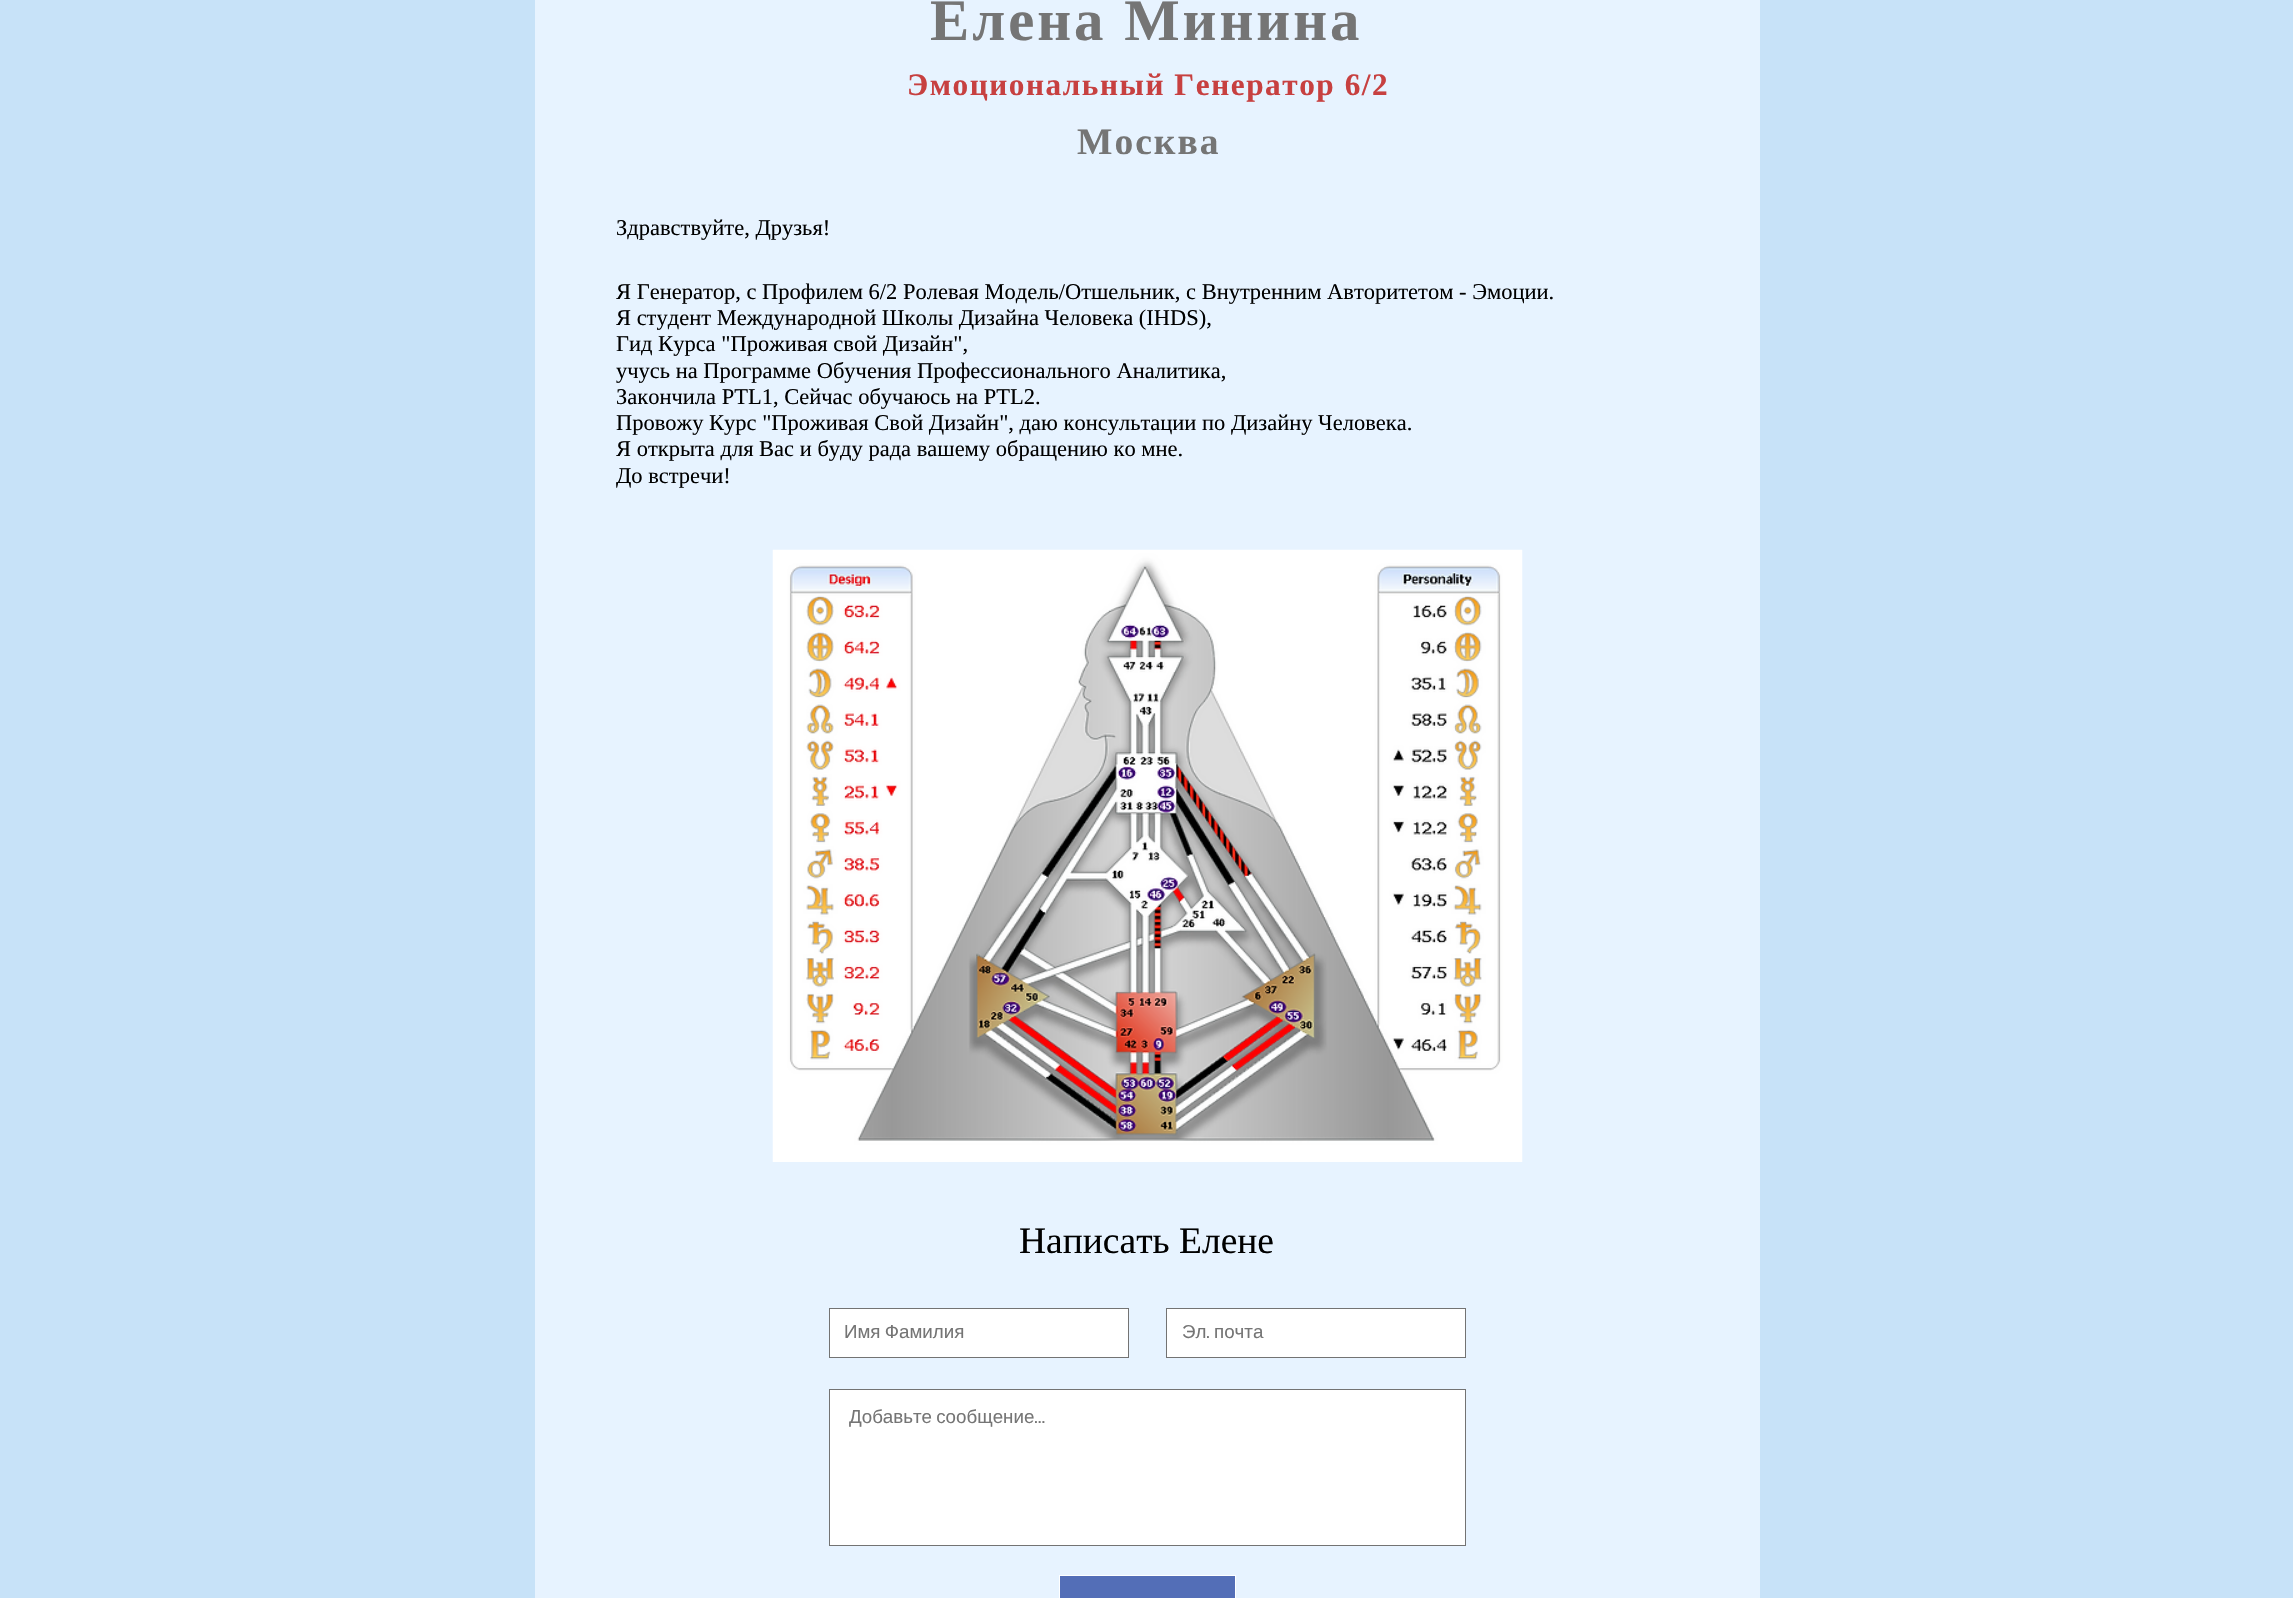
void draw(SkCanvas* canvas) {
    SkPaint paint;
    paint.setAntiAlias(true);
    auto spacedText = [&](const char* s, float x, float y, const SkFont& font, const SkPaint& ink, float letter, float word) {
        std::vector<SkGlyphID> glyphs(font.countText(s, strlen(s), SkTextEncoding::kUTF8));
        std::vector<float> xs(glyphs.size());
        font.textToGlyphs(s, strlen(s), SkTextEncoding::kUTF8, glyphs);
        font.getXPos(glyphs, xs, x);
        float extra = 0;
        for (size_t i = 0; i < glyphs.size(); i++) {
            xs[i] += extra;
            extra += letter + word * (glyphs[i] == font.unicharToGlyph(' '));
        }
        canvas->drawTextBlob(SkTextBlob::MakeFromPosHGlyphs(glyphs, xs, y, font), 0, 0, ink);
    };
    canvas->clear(0xFFC7E2F8);
    paint.setColor(0xFFE7F3FF);
    canvas->drawRect(SkRect::MakeXYWH(535, 0, 1225, 1598), paint);
    SkFont font1(fontMgr->matchFamilyStyle("Liberation Serif", SkFontStyle::Bold()), 58.75f);
    font1.setSubpixel(true);
    paint.setColor(0xFF757575);
    spacedText("Елена Минина", 930, 40, font1, paint, 3, 0);
    SkFont font2(fontMgr->matchFamilyStyle("Liberation Serif", SkFontStyle::Bold()), 31.25f);
    font2.setSubpixel(true);
    paint.setColor(0xFFC74040);
    spacedText("Эмоциональный Генератор 6/2", 907, 95, font2, paint, 1.55f, 0);
    SkFont font3(fontMgr->matchFamilyStyle("Liberation Serif", SkFontStyle::Bold()), 37.5f);
    font3.setSubpixel(true);
    paint.setColor(0xFF757575);
    spacedText("Москва", 1077, 154, font3, paint, 2, 0);
    SkFont font4(fontMgr->matchFamilyStyle("Liberation Serif", SkFontStyle::Normal()), 22.5f);
    font4.setSubpixel(true);
    paint.setColor(0xFF000000);
    canvas->drawString("Здравствуйте, Друзья!", 616, 235, font4, paint);
    canvas->drawString("Я Генератор, с Профилем 6/2 Ролевая Модель/Отшельник, с Внутренним Авторитетом - Эмоции.", 616, 299, font4, paint);
    canvas->drawString("Я студент Международной Школы Дизайна Человека (IHDS),", 616, 325, font4, paint);
    canvas->drawString("Гид Курса \"Проживая свой Дизайн\",", 616, 351, font4, paint);
    canvas->drawString("учусь на Программе Обучения Профессионального Аналитика,", 616, 378, font4, paint);
    canvas->drawString("Закончила PTL1, Сейчас обучаюсь на PTL2.", 616, 404, font4, paint);
    canvas->drawString("Провожу Курс \"Проживая Свой Дизайн\", даю консультации по Дизайну Человека.", 616, 430, font4, paint);
    canvas->drawString("Я открыта для Вас и буду рада вашему обращению ко мне.", 616, 456, font4, paint);
    canvas->drawString("До встречи!", 616, 483, font4, paint);
    canvas->drawImageRect(SkImages::DeferredFromEncodedData(SkData::MakeFromFileName("img1.png")), SkRect::MakeXYWH(772, 549, 751, 613), SkSamplingOptions());
    SkFont font5(fontMgr->matchFamilyStyle("Liberation Serif", SkFontStyle::Normal()), 37.5f);
    font5.setSubpixel(true);
    canvas->drawString("Написать Елене", 1019, 1253, font5, paint);
    paint.setColor(0xFFFFFFFF);
    canvas->drawRect(SkRect::MakeXYWH(829.5f, 1308.5f, 299, 49), paint);
    paint.setStyle(SkPaint::kStroke_Style);
    paint.setStrokeWidth(1);
    paint.setColor(0xFF737373);
    canvas->drawRect(SkRect::MakeXYWH(829.5f, 1308.5f, 299, 49), paint);
    SkFont font6(fontMgr->matchFamilyStyle("Liberation Sans", SkFontStyle::Normal()), 18.75f);
    font6.setSubpixel(true);
    paint.setStyle(SkPaint::kFill_Style);
    paint.setColor(0xFF757575);
    spacedText("Имя Фамилия", 844, 1338, font6, paint, 0, -1);
    paint.setColor(0xFFFFFFFF);
    canvas->drawRect(SkRect::MakeXYWH(1166.5f, 1308.5f, 299, 49), paint);
    paint.setStyle(SkPaint::kStroke_Style);
    paint.setColor(0xFF737373);
    canvas->drawRect(SkRect::MakeXYWH(1166.5f, 1308.5f, 299, 49), paint);
    paint.setStyle(SkPaint::kFill_Style);
    paint.setColor(0xFF757575);
    canvas->drawString("Эл", 1182, 1338, font6, paint);
    SkFont font7(fontMgr->matchFamilyStyle("Questrial", SkFontStyle::Normal()), 18.75f);
    font7.setSubpixel(true);
    canvas->drawString(".", 1206, 1338, font7, paint);
    canvas->drawString("почта", 1214, 1338, font6, paint);
    paint.setColor(0xFFFFFFFF);
    canvas->drawRect(SkRect::MakeXYWH(829.5f, 1389.5f, 636, 156), paint);
    paint.setStyle(SkPaint::kStroke_Style);
    paint.setColor(0xFF737373);
    canvas->drawRect(SkRect::MakeXYWH(829.5f, 1389.5f, 636, 156), paint);
    paint.setStyle(SkPaint::kFill_Style);
    paint.setColor(0xFF757575);
    spacedText("Добавьте сообщение", 849, 1423, font6, paint, 0, -1);
    canvas->drawString("...", 1034, 1423, font7, paint);
    paint.setColor(0xFF536EB7);
    canvas->drawRect(SkRect::MakeXYWH(1059.5f, 1575.5f, 176, 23), paint);
    paint.setStyle(SkPaint::kStroke_Style);
    paint.setColor(0xFFFFFFFF);
    canvas->drawRect(SkRect::MakeXYWH(1059.5f, 1575.5f, 176, 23), paint);
}
